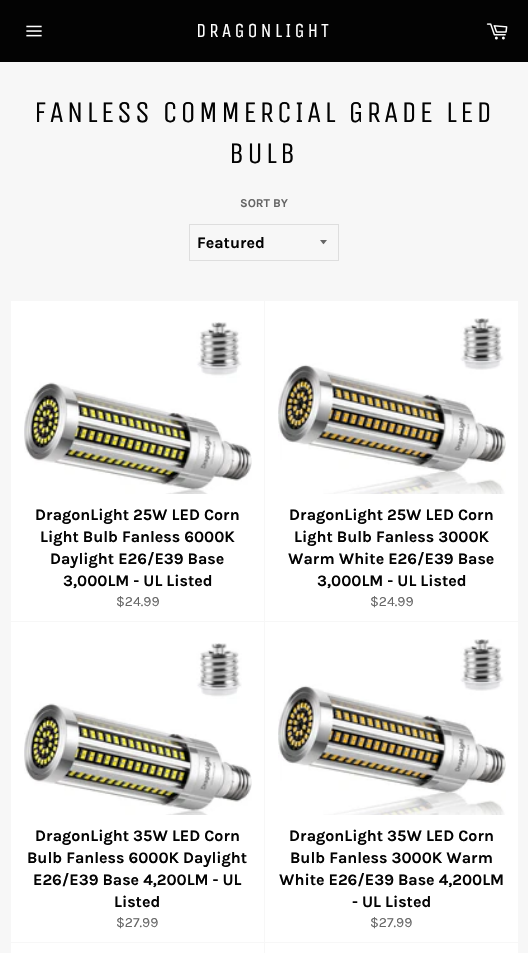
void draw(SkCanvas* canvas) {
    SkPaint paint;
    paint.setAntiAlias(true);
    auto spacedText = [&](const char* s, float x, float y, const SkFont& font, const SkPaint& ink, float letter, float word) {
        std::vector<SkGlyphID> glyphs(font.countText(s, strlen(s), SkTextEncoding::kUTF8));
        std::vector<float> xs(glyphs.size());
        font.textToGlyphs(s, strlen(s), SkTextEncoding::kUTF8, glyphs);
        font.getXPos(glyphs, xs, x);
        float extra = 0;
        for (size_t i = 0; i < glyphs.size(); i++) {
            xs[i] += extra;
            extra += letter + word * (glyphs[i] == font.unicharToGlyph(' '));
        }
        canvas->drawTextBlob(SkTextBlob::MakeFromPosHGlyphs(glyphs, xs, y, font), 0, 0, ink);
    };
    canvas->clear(0xFFF7F7F7);
    paint.setColor(0xFF030303);
    canvas->drawRect(SkRect::MakeXYWH(0, 0, 528, 62), paint);
    canvas->drawImageRect(SkImages::DeferredFromEncodedData(SkData::MakeFromFileName("img1.png")), SkRect::MakeXYWH(26, 25, 16, 12), SkSamplingOptions());
    SkFont font1(fontMgr->matchFamilyStyle("Unica One", SkFontStyle::Normal()), 20);
    font1.setSubpixel(true);
    paint.setColor(0xFFFFFFFF);
    spacedText("DRAGONLIGHT", 196, 37, font1, paint, 3, 0);
    canvas->drawImageRect(SkImages::DeferredFromEncodedData(SkData::MakeFromFileName("img2.png")), SkRect::MakeXYWH(486, 23, 22, 17), SkSamplingOptions());
    SkFont font2(fontMgr->matchFamilyStyle("Unica One", SkFontStyle::Normal()), 30);
    font2.setSubpixel(true);
    paint.setColor(0xFF030303);
    spacedText("FANLESS COMMERCIAL GRADE LED", 34, 122, font2, paint, 3, 0);
    spacedText("BULB", 229, 163, font2, paint, 3, 0);
    SkFont font3(fontMgr->matchFamilyStyle("Karla", SkFontStyle::Bold()), 12);
    font3.setSubpixel(true);
    paint.setColor(0xFF666666);
    canvas->drawString("SORT BY", 240, 207, font3, paint);
    canvas->drawPath(SkPathBuilder().moveTo(320, 240).cubicTo(324.5f, 245.5f, 322.5f, 245.5f, 327, 240).close().detach(), paint);
    paint.setStyle(SkPaint::kStroke_Style);
    paint.setStrokeWidth(1);
    paint.setColor(0xFFDEDEDE);
    canvas->drawRect(SkRect::MakeXYWH(189.5f, 224.5f, 149, 36), paint);
    SkFont font4(fontMgr->matchFamilyStyle("Karla", SkFontStyle::Bold()), 16);
    font4.setSubpixel(true);
    paint.setStyle(SkPaint::kFill_Style);
    paint.setColor(0xFF030303);
    canvas->drawString("Featured", 197, 248, font4, paint);
    paint.setColor(0xFFFFFFFF);
    canvas->drawRect(SkRect::MakeXYWH(11, 301, 253, 320), paint);
    canvas->drawImageRect(SkImages::DeferredFromEncodedData(SkData::MakeFromFileName("img3.png")), SkRect::MakeXYWH(24, 322, 228, 172), SkSamplingOptions());
    paint.setColor(0xFF030303);
    canvas->drawString("DragonLight 25W LED Corn", 35, 520, font4, paint);
    canvas->drawString("Light Bulb Fanless 6000K", 40, 542, font4, paint);
    canvas->drawString("Daylight E26/E39 Base", 50, 564, font4, paint);
    canvas->drawString("3,000LM - UL Listed", 63, 586, font4, paint);
    SkFont font5(fontMgr->matchFamilyStyle("Karla", SkFontStyle::Normal()), 14);
    font5.setSubpixel(true);
    paint.setColor(0xFF666666);
    canvas->drawString("$24.99", 116, 606, font5, paint);
    paint.setColor(0xFFFFFFFF);
    canvas->drawRect(SkRect::MakeXYWH(265, 301, 253, 320), paint);
    canvas->drawImageRect(SkImages::DeferredFromEncodedData(SkData::MakeFromFileName("img4.png")), SkRect::MakeXYWH(278, 318, 228, 176), SkSamplingOptions());
    paint.setColor(0xFF030303);
    canvas->drawString("DragonLight 25W LED Corn", 289, 520, font4, paint);
    canvas->drawString("Light Bulb Fanless 3000K", 294, 542, font4, paint);
    canvas->drawString("Warm White E26/E39 Base", 288, 564, font4, paint);
    canvas->drawString("3,000LM - UL Listed", 317, 586, font4, paint);
    paint.setColor(0xFF666666);
    canvas->drawString("$24.99", 370, 606, font5, paint);
    paint.setColor(0xFFFFFFFF);
    canvas->drawRect(SkRect::MakeXYWH(11, 622, 253, 320), paint);
    canvas->drawImageRect(SkImages::DeferredFromEncodedData(SkData::MakeFromFileName("img5.png")), SkRect::MakeXYWH(24, 643, 228, 172), SkSamplingOptions());
    paint.setColor(0xFF030303);
    canvas->drawString("DragonLight 35W LED Corn", 35, 841, font4, paint);
    canvas->drawString("Bulb Fanless 6000K Daylight", 27, 863, font4, paint);
    canvas->drawString("E26/E39 Base 4,200LM - UL", 33, 885, font4, paint);
    canvas->drawString("Listed", 114, 907, font4, paint);
    paint.setColor(0xFF666666);
    canvas->drawString("$27.99", 116, 927, font5, paint);
    paint.setColor(0xFFFFFFFF);
    canvas->drawRect(SkRect::MakeXYWH(265, 622, 253, 320), paint);
    canvas->drawImageRect(SkImages::DeferredFromEncodedData(SkData::MakeFromFileName("img4.png")), SkRect::MakeXYWH(278, 639, 228, 176), SkSamplingOptions());
    paint.setColor(0xFF030303);
    canvas->drawString("DragonLight 35W LED Corn", 289, 841, font4, paint);
    canvas->drawString("Bulb Fanless 3000K Warm", 290, 863, font4, paint);
    canvas->drawString("White E26/E39 Base 4,200LM", 279, 885, font4, paint);
    canvas->drawString("- UL Listed", 352, 907, font4, paint);
    paint.setColor(0xFF666666);
    canvas->drawString("$27.99", 370, 927, font5, paint);
    paint.setColor(0xFFFFFFFF);
    canvas->drawRect(SkRect::MakeXYWH(11, 943, 253, 10), paint);
    canvas->drawRect(SkRect::MakeXYWH(265, 943, 253, 10), paint);
}
